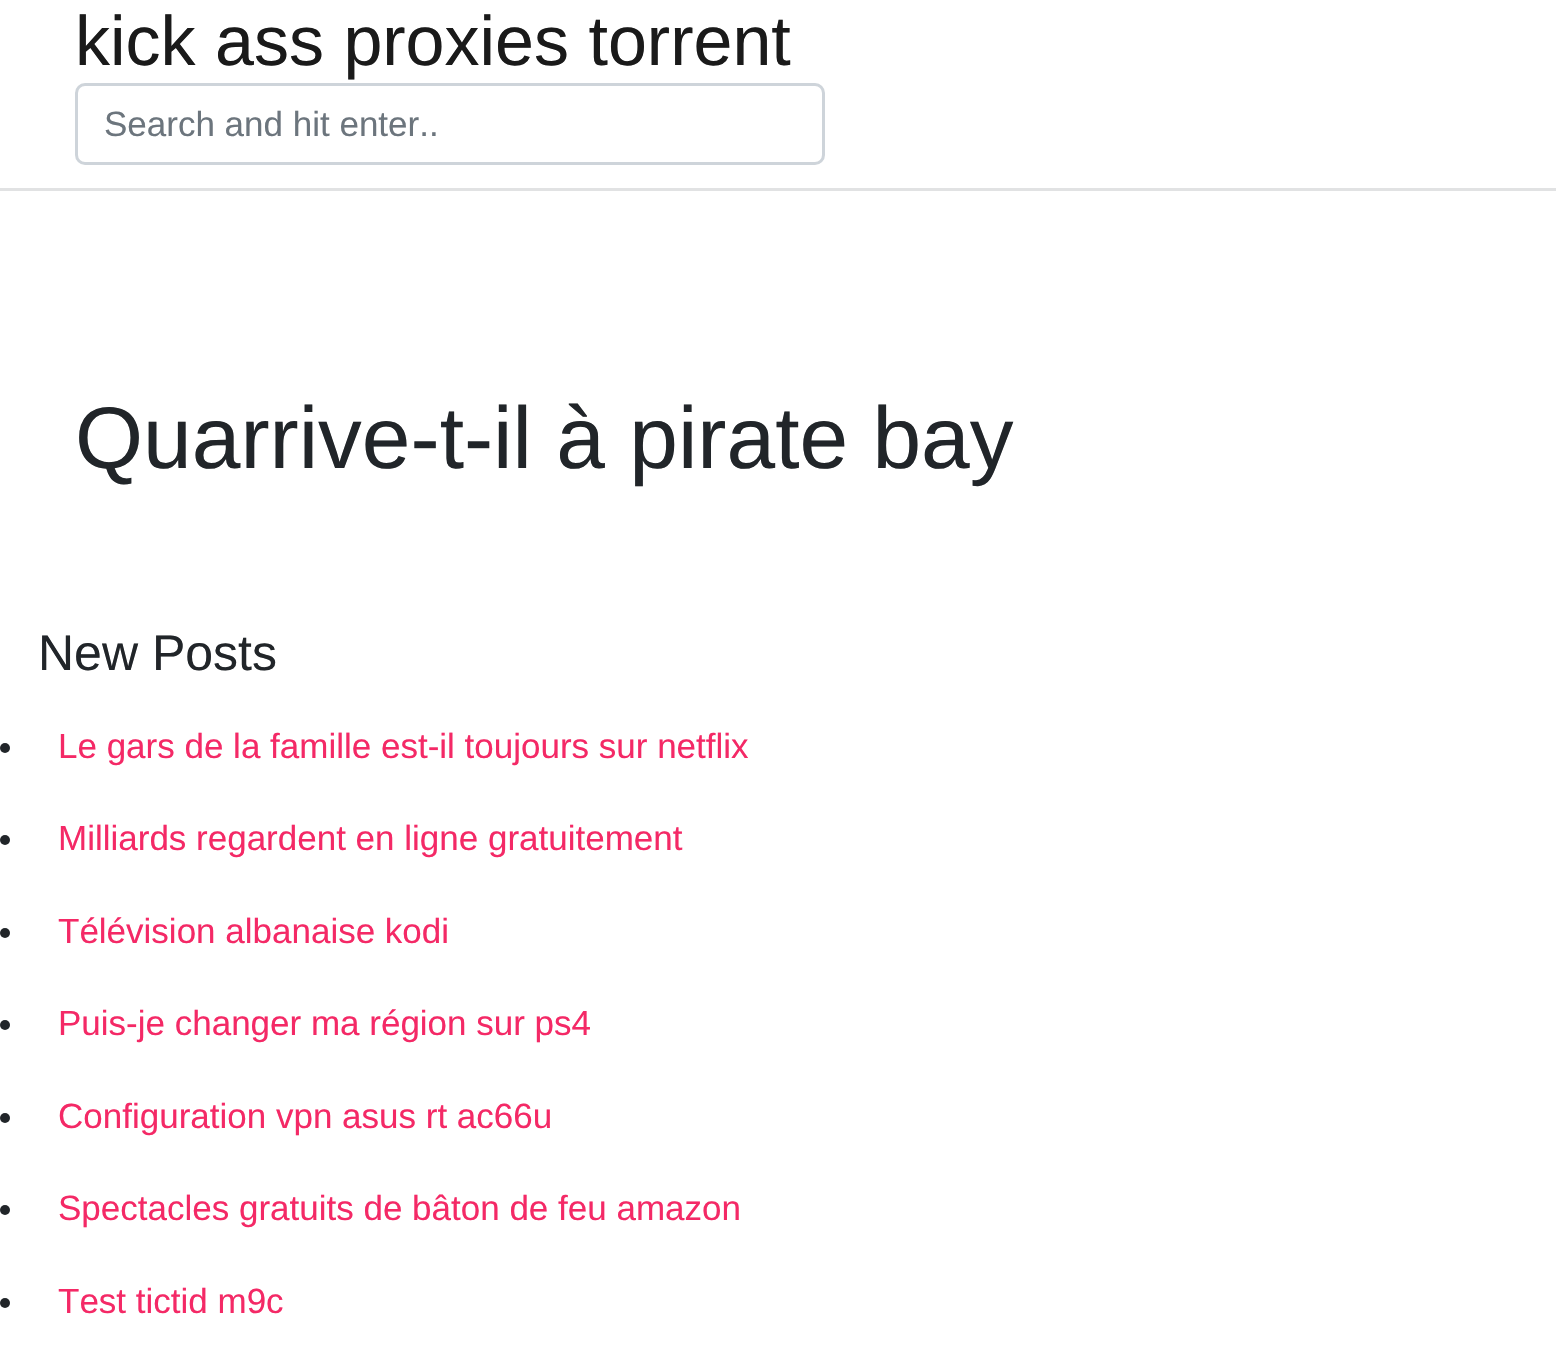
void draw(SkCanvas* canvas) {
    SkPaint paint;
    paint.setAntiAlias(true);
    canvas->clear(0xFFFFFFFF);
    paint.setColor(0xFFE1E2E3);
    canvas->drawRect(SkRect::MakeXYWH(0, 188, 1556, 3), paint);
    SkFont font1(fontMgr->matchFamilyStyle("Liberation Sans", SkFontStyle::Normal()), 70);
    font1.setSubpixel(true);
    paint.setColor(0xFF1A1A1A);
    canvas->drawString("kick ass proxies torrent", 75, 65, font1, paint);
    paint.setStyle(SkPaint::kStroke_Style);
    paint.setStrokeWidth(3);
    paint.setColor(0xFFCED4DA);
    canvas->drawRoundRect(SkRect::MakeXYWH(76.5f, 84.5f, 747, 79), 8.5f, 8.5f, paint);
    SkFont font2(fontMgr->matchFamilyStyle("Liberation Sans", SkFontStyle::Normal()), 35);
    font2.setSubpixel(true);
    paint.setStyle(SkPaint::kFill_Style);
    paint.setColor(0xFF6C757D);
    canvas->drawString("Search and hit enter..", 104, 136, font2, paint);
    SkFont font3(fontMgr->matchFamilyStyle("Liberation Sans", SkFontStyle::Normal()), 87.5f);
    font3.setSubpixel(true);
    paint.setColor(0xFF212529);
    canvas->drawString("Quarrive-t-il à pirate bay", 75, 468, font3, paint);
    SkFont font4(fontMgr->matchFamilyStyle("Liberation Sans", SkFontStyle::Normal()), 50);
    font4.setSubpixel(true);
    canvas->drawString("New Posts", 38, 670, font4, paint);
    canvas->drawCircle(5, 748, 5, paint);
    paint.setColor(0xFFF42966);
    canvas->drawString("Le gars de la famille est-il toujours sur netflix", 58, 758, font2, paint);
    paint.setColor(0xFF212529);
    canvas->drawCircle(5, 840, 5, paint);
    paint.setColor(0xFFF42966);
    canvas->drawString("Milliards regardent en ligne gratuitement", 58, 850, font2, paint);
    paint.setColor(0xFF212529);
    canvas->drawCircle(5, 933, 5, paint);
    paint.setColor(0xFFF42966);
    canvas->drawString("Télévision albanaise kodi", 58, 943, font2, paint);
    paint.setColor(0xFF212529);
    canvas->drawCircle(5, 1025, 5, paint);
    paint.setColor(0xFFF42966);
    canvas->drawString("Puis-je changer ma région sur ps4", 58, 1035, font2, paint);
    paint.setColor(0xFF212529);
    canvas->drawCircle(5, 1118, 5, paint);
    paint.setColor(0xFFF42966);
    canvas->drawString("Configuration vpn asus rt ac66u", 58, 1128, font2, paint);
    paint.setColor(0xFF212529);
    canvas->drawCircle(5, 1210, 5, paint);
    paint.setColor(0xFFF42966);
    canvas->drawString("Spectacles gratuits de bâton de feu amazon", 58, 1220, font2, paint);
    paint.setColor(0xFF212529);
    canvas->drawCircle(5, 1303, 5, paint);
    paint.setColor(0xFFF42966);
    canvas->drawString("Test tictid m9c", 58, 1313, font2, paint);
}
